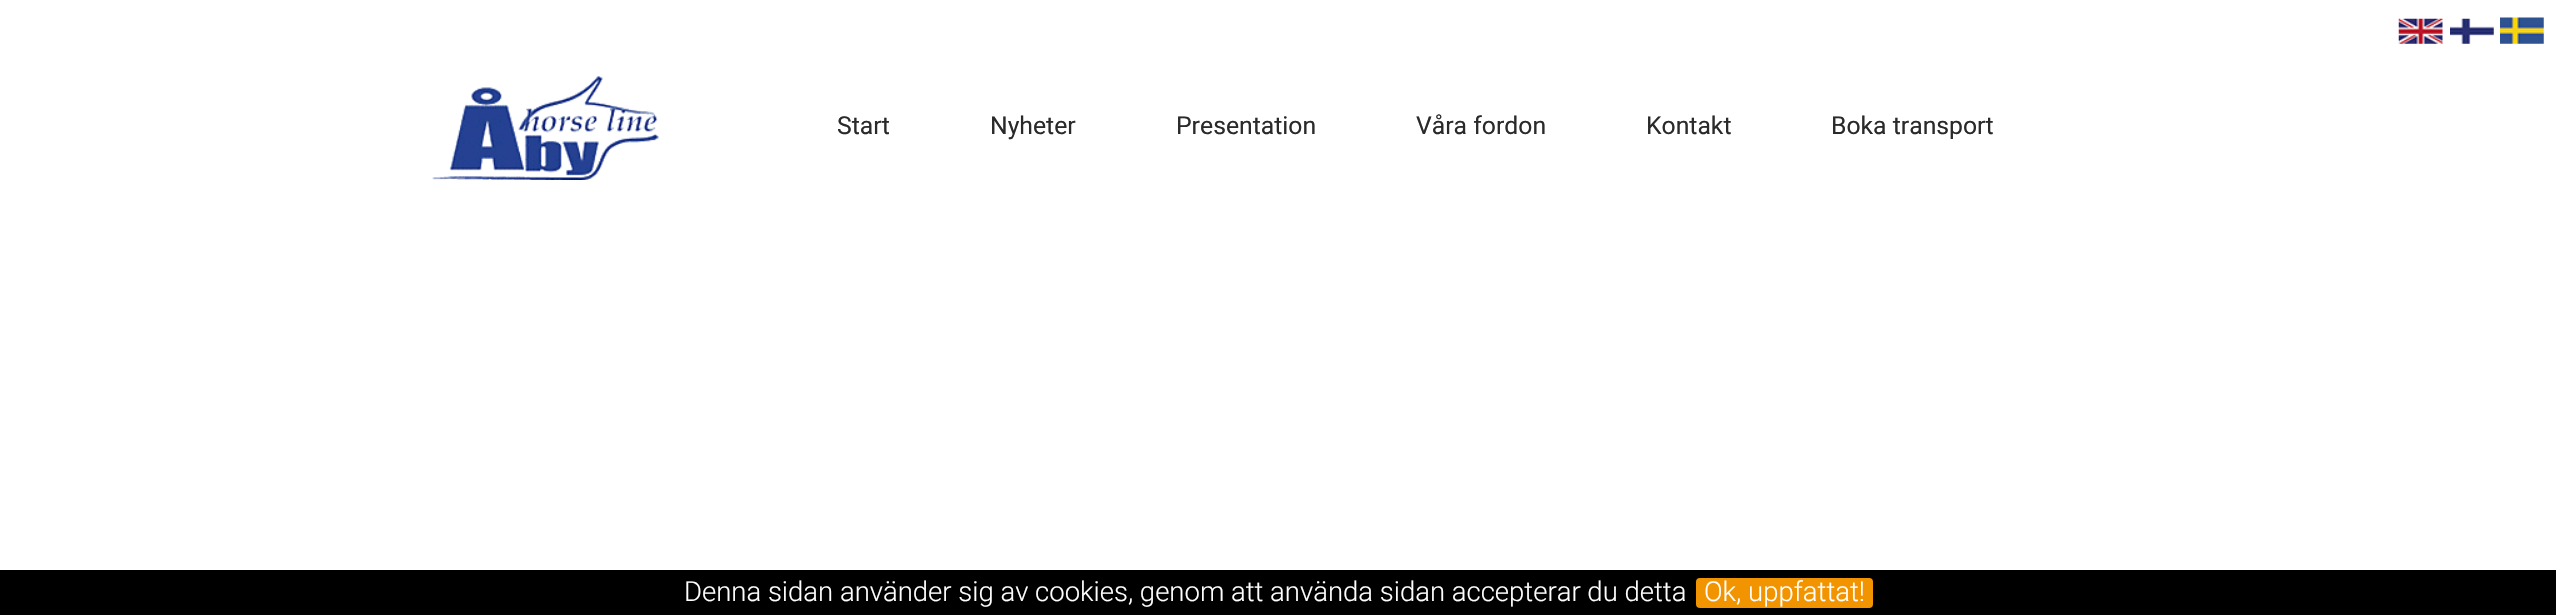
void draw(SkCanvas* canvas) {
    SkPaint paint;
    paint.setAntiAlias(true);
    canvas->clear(0xFFFFFFFF);
    canvas->drawImageRect(SkImages::DeferredFromEncodedData(SkData::MakeFromFileName("img1.png")), SkRect::MakeXYWH(2398, 18, 45, 26), SkSamplingOptions());
    canvas->drawImageRect(SkImages::DeferredFromEncodedData(SkData::MakeFromFileName("img2.png")), SkRect::MakeXYWH(2450, 18, 44, 26), SkSamplingOptions());
    canvas->drawImageRect(SkImages::DeferredFromEncodedData(SkData::MakeFromFileName("img3.png")), SkRect::MakeXYWH(2500, 17, 44, 27), SkSamplingOptions());
    canvas->drawImageRect(SkImages::DeferredFromEncodedData(SkData::MakeFromFileName("img4.png")), SkRect::MakeXYWH(432, 75, 227, 105), SkSamplingOptions());
    SkFont font1(fontMgr->matchFamilyStyle("Roboto", SkFontStyle::Normal()), 24.75f);
    font1.setSubpixel(true);
    paint.setColor(0xFF2B2A2A);
    canvas->drawString("Start", 837, 134, font1, paint);
    canvas->drawString("Nyheter", 990, 134, font1, paint);
    canvas->drawString("Presentation", 1176, 134, font1, paint);
    canvas->drawString("Våra fordon", 1416, 134, font1, paint);
    canvas->drawString("Kontakt", 1646, 134, font1, paint);
    canvas->drawString("Boka transport", 1831, 134, font1, paint);
    paint.setColor(0xFF000000);
    canvas->drawRect(SkRect::MakeXYWH(0, 570, 2556, 45), paint);
    SkFont font2(fontMgr->matchFamilyStyle("Roboto", SkFontStyle(300, SkFontStyle::kNormal_Width, SkFontStyle::kUpright_Slant)), 27.5f);
    font2.setSubpixel(true);
    paint.setColor(0xFFFFFFFF);
    canvas->drawString("Denna sidan använder sig av cookies, genom att använda sidan accepterar du detta", 684, 601, font2, paint);
    paint.setColor(0xFFF29400);
    canvas->drawRoundRect(SkRect::MakeXYWH(1696, 578, 177, 30), 4, 4, paint);
    paint.setColor(0xFFFFFFFF);
    canvas->drawString("Ok, uppfattat!", 1704, 601, font2, paint);
}
